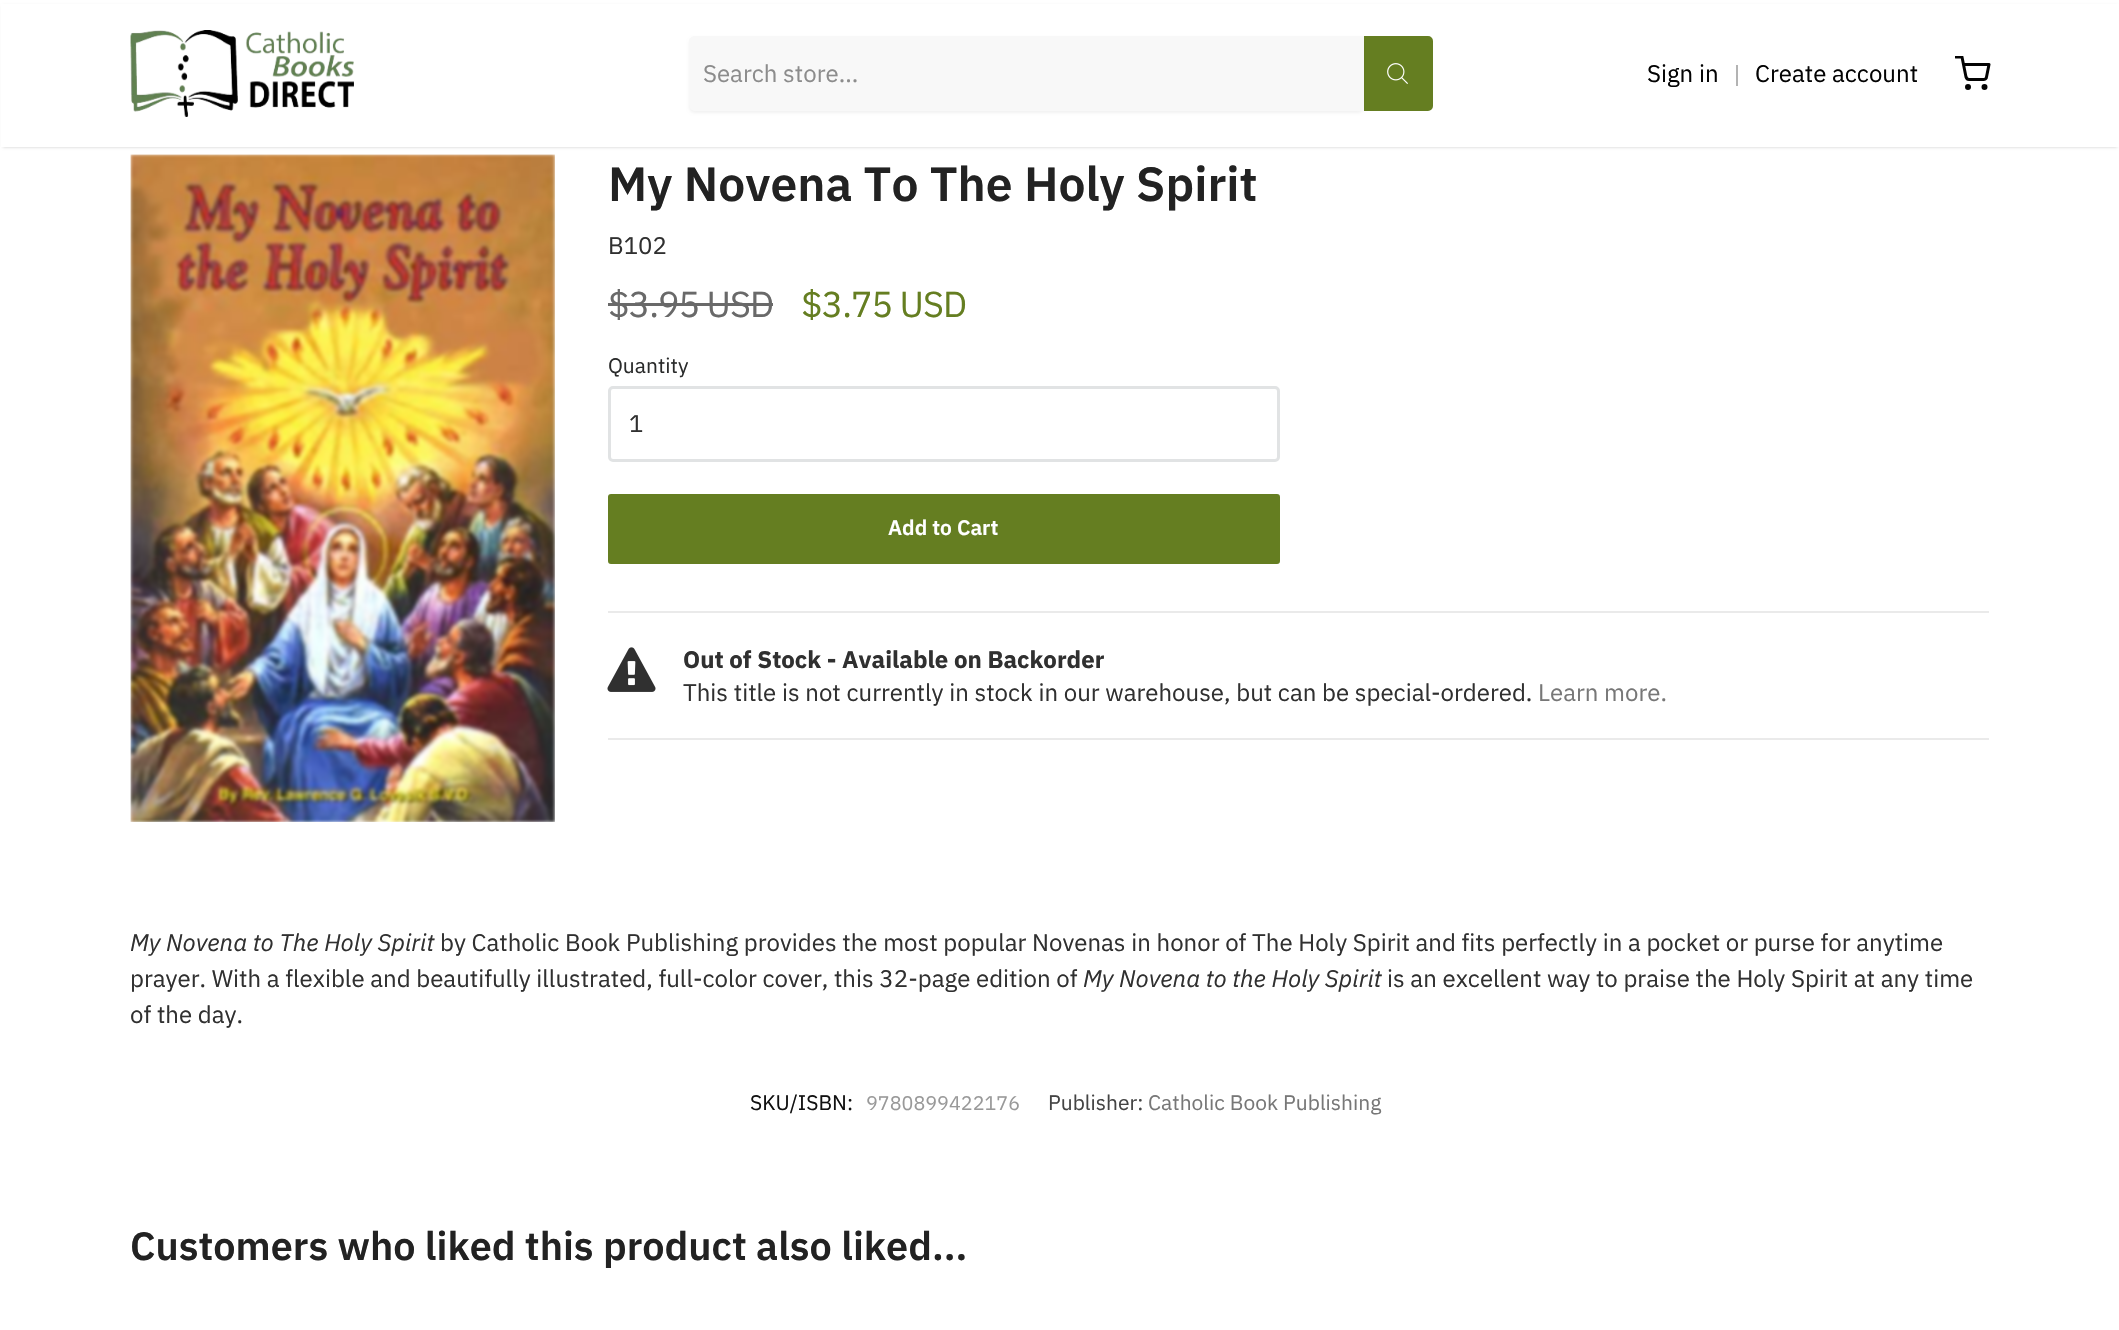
void draw(SkCanvas* canvas) {
    SkPaint paint;
    paint.setAntiAlias(true);
    auto spacedText = [&](const char* s, float x, float y, const SkFont& font, const SkPaint& ink, float letter, float word) {
        std::vector<SkGlyphID> glyphs(font.countText(s, strlen(s), SkTextEncoding::kUTF8));
        std::vector<float> xs(glyphs.size());
        font.textToGlyphs(s, strlen(s), SkTextEncoding::kUTF8, glyphs);
        font.getXPos(glyphs, xs, x);
        float extra = 0;
        for (size_t i = 0; i < glyphs.size(); i++) {
            xs[i] += extra;
            extra += letter + word * (glyphs[i] == font.unicharToGlyph(' '));
        }
        canvas->drawTextBlob(SkTextBlob::MakeFromPosHGlyphs(glyphs, xs, y, font), 0, 0, ink);
    };
    canvas->clear(0xFFFFFFFF);
    paint.setColor(0x33000000);
    paint.setMaskFilter(SkMaskFilter::MakeBlur(kNormal_SkBlurStyle, 1.5f));
    canvas->drawRect(SkRect::MakeXYWH(3, 6, 2114, 141), paint);
    paint.setMaskFilter(nullptr);
    paint.setColor(0xFFFFFFFF);
    canvas->drawRect(SkRect::MakeXYWH(1, 4, 2118, 143), paint);
    canvas->drawImageRect(SkImages::DeferredFromEncodedData(SkData::MakeFromFileName("img1.png")), SkRect::MakeXYWH(130, 30, 224, 87), SkSamplingOptions());
    paint.setColor(0xFF657E21);
    canvas->drawPath(SkPathBuilder().moveTo(1365.5f, 37.5f).lineTo(1428, 37.5f).cubicTo(1430, 37.5f, 1431.5f, 39, 1431.5f, 41).lineTo(1431.5f, 106).cubicTo(1431.5f, 108, 1430, 109.5f, 1428, 109.5f).lineTo(1365.5f, 109.5f).close().detach(), paint);
    paint.setStyle(SkPaint::kStroke_Style);
    paint.setStrokeWidth(3);
    canvas->drawPath(SkPathBuilder().moveTo(1365.5f, 37.5f).lineTo(1428, 37.5f).cubicTo(1430, 37.5f, 1431.5f, 39, 1431.5f, 41).lineTo(1431.5f, 106).cubicTo(1431.5f, 108, 1430, 109.5f, 1428, 109.5f).lineTo(1365.5f, 109.5f).close().detach(), paint);
    paint.setStyle(SkPaint::kFill_Style);
    paint.setColor(0x0D000000);
    paint.setMaskFilter(SkMaskFilter::MakeBlur(kNormal_SkBlurStyle, 1.5f));
    canvas->drawRoundRect(SkRect::MakeXYWH(689, 38, 675, 75), 6, 6, paint);
    paint.setMaskFilter(nullptr);
    paint.setColor(0xFFF8F8F8);
    canvas->drawPath(SkPathBuilder().moveTo(695, 36).lineTo(1364, 36).lineTo(1364, 111).lineTo(695, 111).cubicTo(691.5f, 111, 689, 108.5f, 689, 105).lineTo(689, 42).cubicTo(689, 38.5f, 691.5f, 36, 695, 36).close().detach(), paint);
    SkFont font1(fontMgr->matchFamilyStyle("IBM Plex Sans", SkFontStyle::Normal()), 24);
    font1.setSubpixel(true);
    paint.setColor(0xFF8C8C8C);
    canvas->drawString("Search store...", 703, 82, font1, paint);
    canvas->drawImageRect(SkImages::DeferredFromEncodedData(SkData::MakeFromFileName("img2.png")), SkRect::MakeXYWH(1387, 63, 21, 21), SkSamplingOptions());
    paint.setColor(0xFF030303);
    canvas->drawString("Sign in", 1647, 82, font1, paint);
    paint.setColor(0xFFB3B3B3);
    canvas->drawRect(SkRect::MakeXYWH(1736, 65, 2, 21), paint);
    paint.setColor(0xFF030303);
    canvas->drawString("Create account", 1755, 82, font1, paint);
    canvas->save();
    canvas->clipRect(SkRect::MakeXYWH(1955, 56, 36, 36));
    paint.setStyle(SkPaint::kStroke_Style);
    paint.setStrokeCap(SkPaint::kRound_Cap);
    paint.setStrokeJoin(SkPaint::kRound_Join);
    canvas->drawPath(SkPathBuilder().moveTo(1956, 57).lineTo(1962, 57).lineTo(1966, 77).cubicTo(1966.5f, 78.5f, 1967.5f, 79.5f, 1969, 79.5f).lineTo(1983.5f, 79.5f).cubicTo(1985, 79.5f, 1986.5f, 78.5f, 1986.5f, 77).lineTo(1989, 64.5f).lineTo(1963.5f, 64.5f).detach(), paint);
    canvas->restore();
    paint.setStrokeCap(SkPaint::kButt_Cap);
    paint.setStrokeJoin(SkPaint::kMiter_Join);
    canvas->drawCircle(1968, 87, 1.5f, paint);
    canvas->drawCircle(1984.5f, 87, 1.5f, paint);
    canvas->drawImageRect(SkImages::DeferredFromEncodedData(SkData::MakeFromFileName("img3.png")), SkRect::MakeXYWH(130, 154, 425, 668), SkSamplingOptions());
    SkFont font2(fontMgr->matchFamilyStyle("IBM Plex Sans", SkFontStyle(600, SkFontStyle::kNormal_Width, SkFontStyle::kUpright_Slant)), 48);
    font2.setSubpixel(true);
    paint.setStyle(SkPaint::kFill_Style);
    paint.setColor(0xFF222222);
    canvas->drawString("My Novena To The Holy Spirit", 608, 201, font2, paint);
    paint.setColor(0xFF303030);
    canvas->drawString("B102", 608, 254, font1, paint);
    SkFont font3(fontMgr->matchFamilyStyle("IBM Plex Sans", SkFontStyle::Normal()), 36);
    font3.setSubpixel(true);
    paint.setColor(0xFF696969);
    spacedText("$3.95 USD", 608, 317, font3, paint, -1, 0);
    canvas->drawRect(SkRect::MakeXYWH(608, 303, 165, 3), paint);
    paint.setColor(0xFF657E21);
    spacedText("$3.75 USD", 801, 317, font3, paint, -1, 0);
    SkFont font4(fontMgr->matchFamilyStyle("IBM Plex Sans", SkFontStyle::Normal()), 21);
    font4.setSubpixel(true);
    paint.setColor(0xFF2A2B2B);
    canvas->drawString("Quantity", 608, 373, font4, paint);
    paint.setStyle(SkPaint::kStroke_Style);
    paint.setColor(0xFFE1E3E4);
    canvas->drawRoundRect(SkRect::MakeXYWH(609.5f, 387.5f, 669, 73), 3.5f, 3.5f, paint);
    paint.setStyle(SkPaint::kFill_Style);
    paint.setColor(0xFF303030);
    canvas->drawString("1", 629, 432, font1, paint);
    paint.setColor(0xFF657E21);
    canvas->drawRoundRect(SkRect::MakeXYWH(609.5f, 495.5f, 669, 67), 1.5f, 1.5f, paint);
    paint.setStyle(SkPaint::kStroke_Style);
    canvas->drawRoundRect(SkRect::MakeXYWH(609.5f, 495.5f, 669, 67), 1.5f, 1.5f, paint);
    SkFont font5(fontMgr->matchFamilyStyle("IBM Plex Sans", SkFontStyle(600, SkFontStyle::kNormal_Width, SkFontStyle::kUpright_Slant)), 21);
    font5.setSubpixel(true);
    paint.setStyle(SkPaint::kFill_Style);
    paint.setColor(0xFFFFFFFF);
    canvas->drawString("Add to Cart", 888, 535, font5, paint);
    paint.setColor(0xFFEAEAEA);
    canvas->drawRect(SkRect::MakeXYWH(608, 611, 1381, 2), paint);
    canvas->drawImageRect(SkImages::DeferredFromEncodedData(SkData::MakeFromFileName("img4.png")), SkRect::MakeXYWH(607, 647, 49, 45), SkSamplingOptions());
    SkFont font6(fontMgr->matchFamilyStyle("IBM Plex Sans", SkFontStyle::Bold()), 24);
    font6.setSubpixel(true);
    paint.setColor(0xFF303030);
    canvas->drawString("Out of Stock - Available on Backorder", 683, 668, font6, paint);
    canvas->drawString("This title is not currently in stock in our warehouse, but can be special-ordered.", 683, 701, font1, paint);
    paint.setColor(0xFF777777);
    canvas->drawString("Learn more.", 1538, 701, font1, paint);
    paint.setColor(0xFFEAEAEA);
    canvas->drawRect(SkRect::MakeXYWH(608, 738, 1381, 2), paint);
    SkFont font7(fontMgr->matchFamilyStyle("IBM Plex Sans", SkFontStyle::Italic()), 24);
    font7.setSubpixel(true);
    paint.setColor(0xFF303030);
    canvas->drawString("My Novena to The Holy Spirit", 130, 951, font7, paint);
    canvas->drawString("by Catholic Book Publishing provides the most popular Novenas in honor of The Holy Spirit and fits perfectly in a pocket or purse for anytime", 440, 951, font1, paint);
    canvas->drawString("prayer. With a flexible and beautifully illustrated, full-color cover, this 32-page edition of", 130, 987, font1, paint);
    canvas->drawString("My Novena to the Holy Spirit", 1083, 987, font7, paint);
    canvas->drawString("is an excellent way to praise the Holy Spirit at any time", 1387, 987, font1, paint);
    canvas->drawString("of the day.", 130, 1023, font1, paint);
    paint.setColor(0xFF111111);
    canvas->drawString("SKU/ISBN:", 750, 1110, font4, paint);
    SkFont font8(fontMgr->matchFamilyStyle("IBM Plex Sans", SkFontStyle::Normal()), 19.75f);
    font8.setSubpixel(true);
    paint.setColor(0xFF999999);
    canvas->drawString("9780899422176", 866, 1110, font8, paint);
    paint.setColor(0xFF444444);
    canvas->drawString("Publisher:", 1048, 1110, font4, paint);
    paint.setColor(0xFF777777);
    canvas->drawString("Catholic Book Publishing", 1148, 1110, font4, paint);
    SkFont font9(fontMgr->matchFamilyStyle("IBM Plex Sans", SkFontStyle(600, SkFontStyle::kNormal_Width, SkFontStyle::kUpright_Slant)), 39.6f);
    font9.setSubpixel(true);
    paint.setColor(0xFF222222);
    canvas->drawString("Customers who liked this product also liked...", 130, 1260, font9, paint);
}
